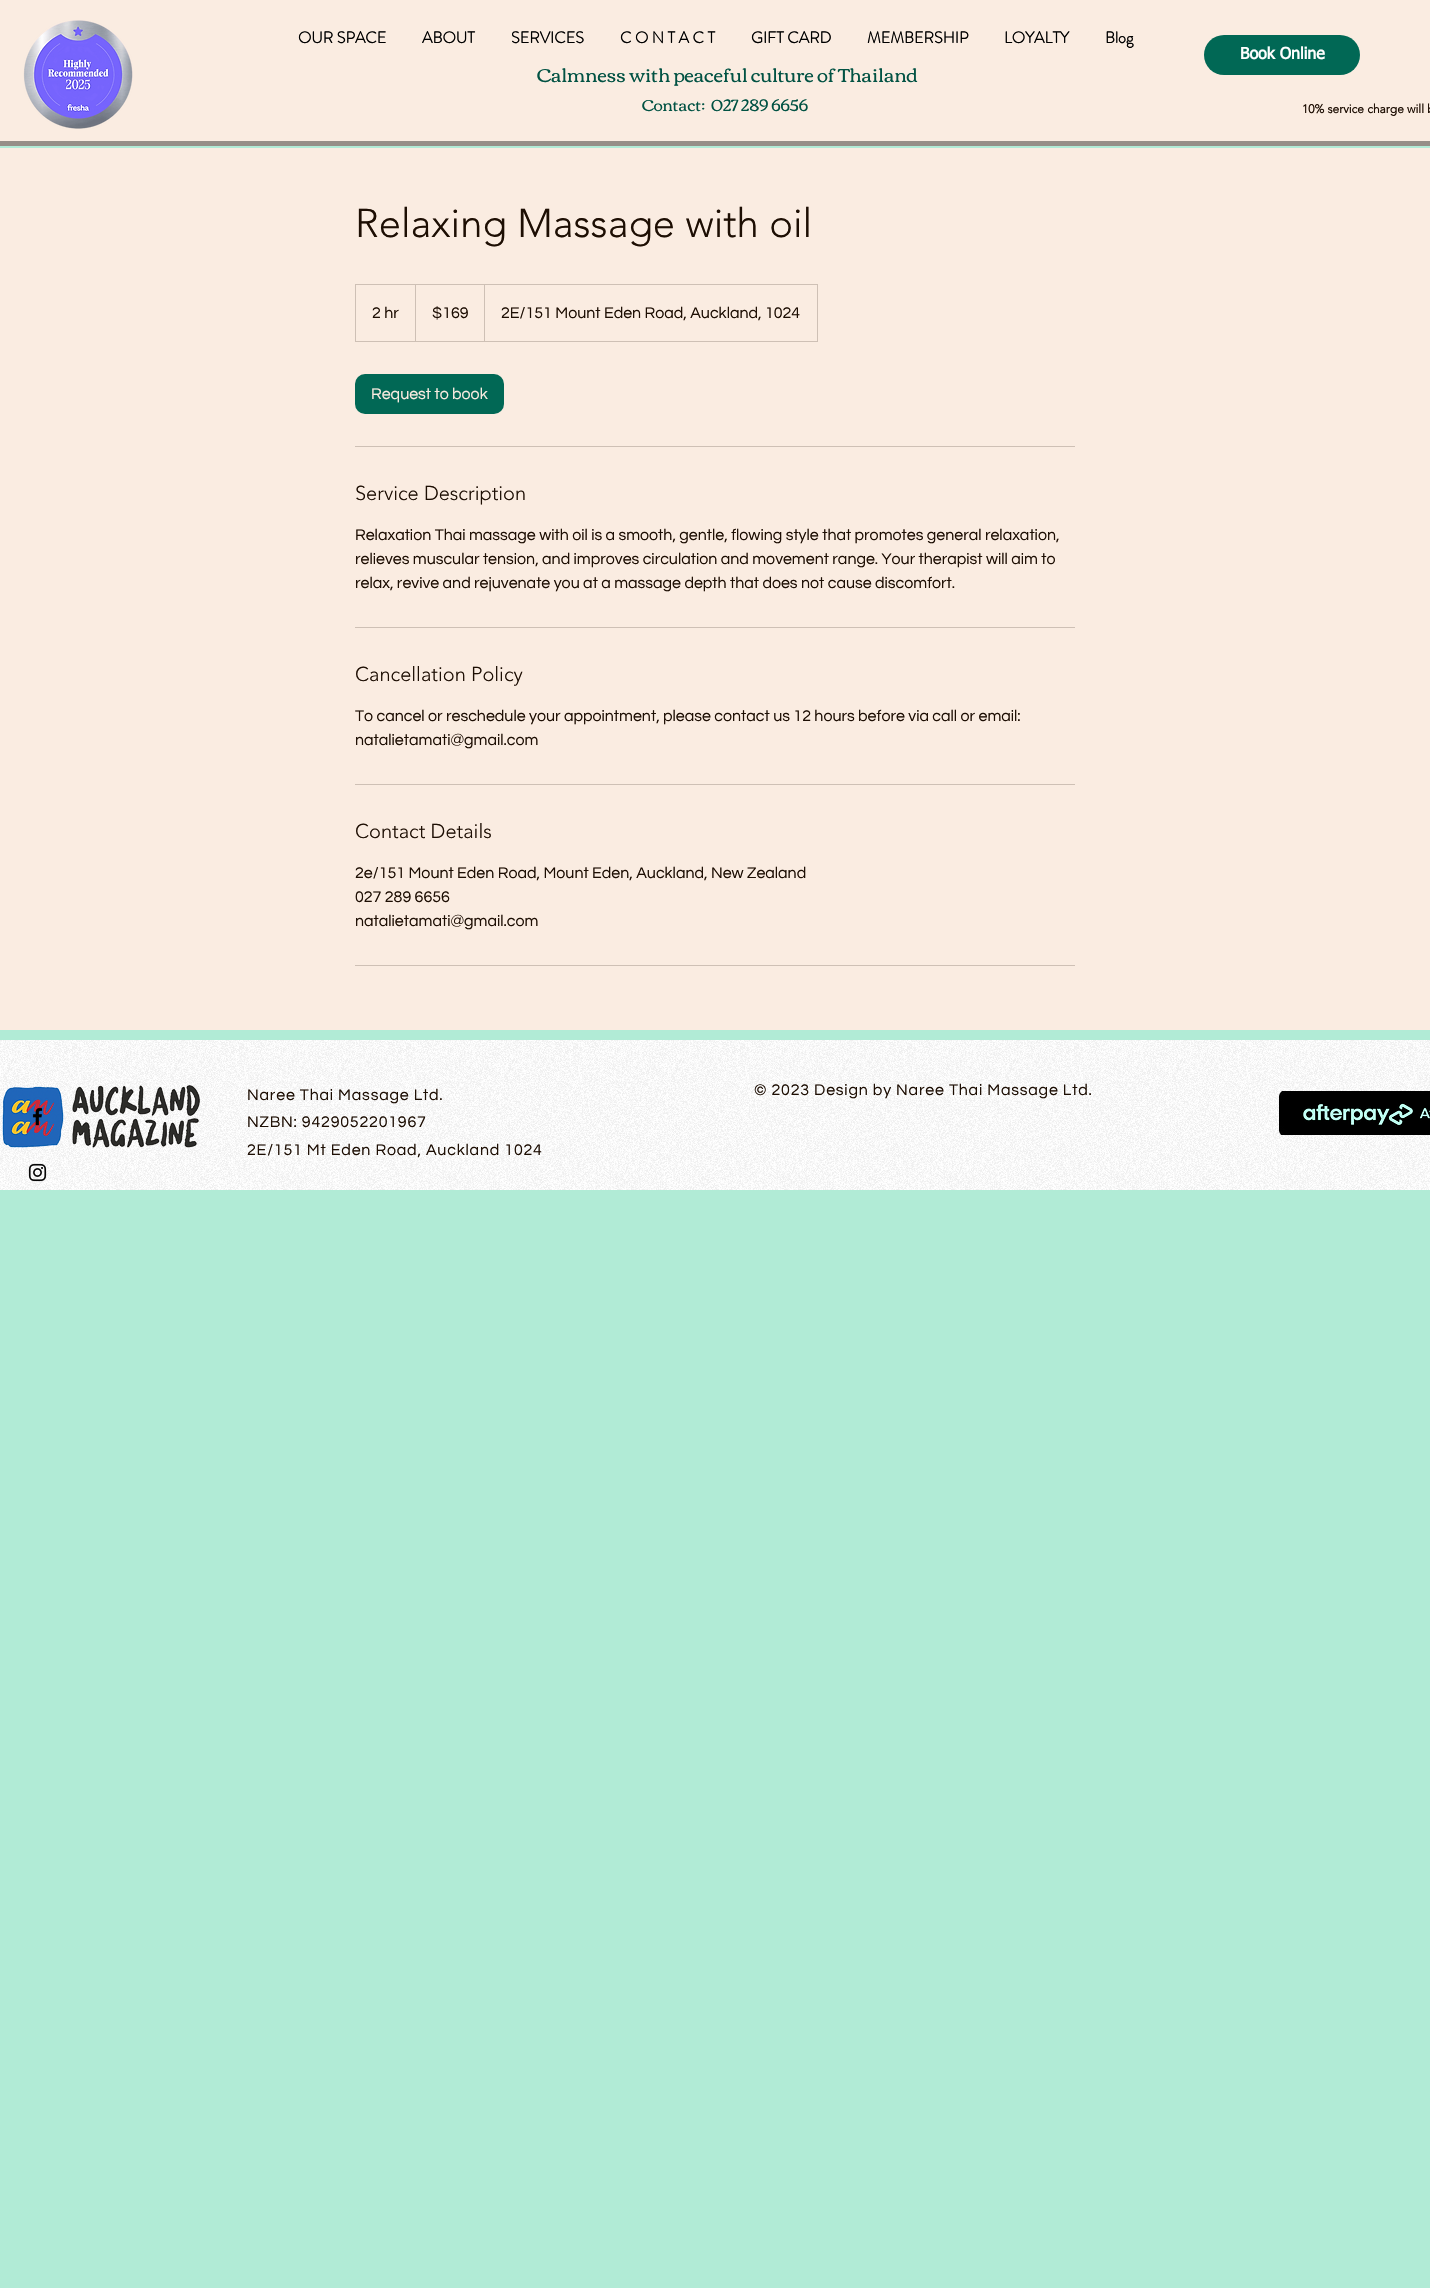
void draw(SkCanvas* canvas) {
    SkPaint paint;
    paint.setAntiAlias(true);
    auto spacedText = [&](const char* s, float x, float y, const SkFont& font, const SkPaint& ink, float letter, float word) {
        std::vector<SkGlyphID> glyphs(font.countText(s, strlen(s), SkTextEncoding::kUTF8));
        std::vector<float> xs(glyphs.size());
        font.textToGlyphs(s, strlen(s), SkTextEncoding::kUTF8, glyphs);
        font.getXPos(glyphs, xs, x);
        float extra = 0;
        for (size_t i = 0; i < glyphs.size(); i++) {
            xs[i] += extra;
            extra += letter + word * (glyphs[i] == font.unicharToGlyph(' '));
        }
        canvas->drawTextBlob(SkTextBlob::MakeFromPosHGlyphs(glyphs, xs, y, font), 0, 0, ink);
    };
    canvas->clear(0xFFB1EBD6);
    paint.setColor(0xFFFAECE1);
    canvas->drawRect(SkRect::MakeXYWH(0, 0, 1430, 141), paint);
    paint.setColor(0xFF968E87);
    canvas->drawRect(SkRect::MakeXYWH(0, 141, 1430, 5), paint);
    canvas->drawImageRect(SkImages::DeferredFromEncodedData(SkData::MakeFromFileName("img1.png")), SkRect::MakeXYWH(23, 20, 110, 109), SkSamplingOptions());
    SkFont font1(fontMgr->matchFamilyStyle("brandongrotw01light", SkFontStyle::Bold()), 16);
    font1.setSubpixel(true);
    paint.setColor(0xFF000000);
    canvas->drawString("OUR SPACE", 298, 43, font1, paint);
    canvas->drawString("ABOUT", 422, 43, font1, paint);
    canvas->drawString("SERVICES", 511, 43, font1, paint);
    canvas->drawString("C O N T A C T", 620, 43, font1, paint);
    canvas->drawString("GIFT CARD", 751, 43, font1, paint);
    canvas->drawString("MEMBERSHIP", 867, 43, font1, paint);
    canvas->drawString("LOYALTY", 1004, 43, font1, paint);
    canvas->drawString("Blog", 1105, 43, font1, paint);
    SkFont font2(fontMgr->matchFamilyStyle("Corben", SkFontStyle::Normal()), 19);
    font2.setSubpixel(true);
    paint.setColor(0xFF015243);
    canvas->drawString("Calmness with peaceful culture of Thailand", 537, 82, font2, paint);
    SkFont font3(fontMgr->matchFamilyStyle("Corben", SkFontStyle::Normal()), 16);
    font3.setSubpixel(true);
    canvas->drawString("Contact:", 642, 111, font3, paint);
    canvas->drawString("027 289 6656", 711, 111, font3, paint);
    SkFont font4(fontMgr->matchFamilyStyle("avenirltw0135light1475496", SkFontStyle::Bold()), 12);
    font4.setSubpixel(true);
    paint.setColor(0xFF1D0E03);
    canvas->drawString("10% service charge will b", 1302, 113, font4, paint);
    paint.setColor(0xFF016855);
    canvas->drawRoundRect(SkRect::MakeXYWH(1204, 35, 156, 40), 20, 20, paint);
    SkFont font5(fontMgr->matchFamilyStyle("tahoma", SkFontStyle::Bold()), 16);
    font5.setSubpixel(true);
    paint.setColor(0xFFFFFFFF);
    canvas->drawString("Book Online", 1240, 59, font5, paint);
    paint.setColor(0xFFFAECE1);
    canvas->drawRect(SkRect::MakeXYWH(0, 148, 1430, 882), paint);
    SkFont font6(fontMgr->matchFamilyStyle("avenirltw0135light1475496", SkFontStyle(300, SkFontStyle::kNormal_Width, SkFontStyle::kUpright_Slant)), 40);
    font6.setSubpixel(true);
    paint.setColor(0xFF1D0E03);
    canvas->drawString("Relaxing Massage with oil", 355, 237, font6, paint);
    paint.setStyle(SkPaint::kStroke_Style);
    paint.setStrokeWidth(1);
    paint.setColor(0xFFCEC0B5);
    canvas->drawRect(SkRect::MakeXYWH(355.5f, 284.5f, 462, 57), paint);
    SkFont font7(fontMgr->matchFamilyStyle("Questrial", SkFontStyle::Normal()), 16);
    font7.setSubpixel(true);
    paint.setStyle(SkPaint::kFill_Style);
    paint.setColor(0xFF1D0E03);
    canvas->drawString("2 hr", 372, 318, font7, paint);
    paint.setColor(0xFFCEC0B5);
    canvas->drawPath(SkPathBuilder().moveTo(415, 341).lineTo(415, 284).lineTo(416, 285).lineTo(416, 341).close().detach(), paint);
    paint.setColor(0xFF1D0E03);
    canvas->drawString("$169", 432, 318, font7, paint);
    paint.setColor(0xFFCEC0B5);
    canvas->drawPath(SkPathBuilder().moveTo(484, 341).lineTo(484, 284).lineTo(485, 285).lineTo(485, 341).close().detach(), paint);
    paint.setColor(0xFF1D0E03);
    canvas->drawString("2E/151 Mount Eden Road, Auckland, 1024", 501, 318, font7, paint);
    paint.setColor(0xFF016855);
    canvas->drawRoundRect(SkRect::MakeXYWH(355, 374, 149, 40), 10, 10, paint);
    paint.setColor(0xFFFAECE1);
    canvas->drawString("Request to book", 371, 399, font7, paint);
    paint.setColor(0xFFCEC0B5);
    canvas->drawRect(SkRect::MakeXYWH(355, 446, 720, 1), paint);
    SkFont font8(fontMgr->matchFamilyStyle("avenirltw0135light1475496", SkFontStyle(300, SkFontStyle::kNormal_Width, SkFontStyle::kUpright_Slant)), 20);
    font8.setSubpixel(true);
    paint.setColor(0xFF1D0E03);
    canvas->drawString("Service Description", 355, 500, font8, paint);
    canvas->drawString("Relaxation Thai massage with oil is a smooth, gentle, flowing style that promotes general relaxation,", 355, 540, font7, paint);
    canvas->drawString("relieves muscular tension, and improves circulation and movement range. Your therapist will aim to", 355, 564, font7, paint);
    canvas->drawString("relax, revive and rejuvenate you at a massage depth that does not cause discomfort.", 355, 588, font7, paint);
    paint.setColor(0xFFCEC0B5);
    canvas->drawRect(SkRect::MakeXYWH(355, 627, 720, 1), paint);
    paint.setColor(0xFF1D0E03);
    canvas->drawString("Cancellation Policy", 355, 681, font8, paint);
    canvas->drawString("To cancel or reschedule your appointment, please contact us 12 hours before via call or email:", 355, 721, font7, paint);
    canvas->drawString("natalietamati@gmail.com", 355, 745, font7, paint);
    paint.setColor(0xFFCEC0B5);
    canvas->drawRect(SkRect::MakeXYWH(355, 784, 720, 1), paint);
    paint.setColor(0xFF1D0E03);
    canvas->drawString("Contact Details", 355, 838, font8, paint);
    canvas->drawString("2e/151 Mount Eden Road, Mount Eden, Auckland, New Zealand", 355, 878, font7, paint);
    canvas->drawString("027 289 6656", 355, 902, font7, paint);
    canvas->drawString("natalietamati@gmail.com", 355, 926, font7, paint);
    paint.setColor(0xFFCEC0B5);
    canvas->drawRect(SkRect::MakeXYWH(355, 965, 720, 1), paint);
    paint.setColor(0xFFFFFFFF);
    canvas->drawRect(SkRect::MakeXYWH(0, 1040, 1430, 150), paint);
    canvas->drawImageRect(SkImages::DeferredFromEncodedData(SkData::MakeFromFileName("img4.png")), SkRect::MakeXYWH(0, 1040, 1430, 150), SkSamplingOptions());
    canvas->drawImageRect(SkImages::DeferredFromEncodedData(SkData::MakeFromFileName("img5.png")), SkRect::MakeXYWH(2, 1085, 198, 63), SkSamplingOptions());
    canvas->drawImageRect(SkImages::DeferredFromEncodedData(SkData::MakeFromFileName("img2.png")), SkRect::MakeXYWH(32, 1107, 11, 19), SkSamplingOptions());
    canvas->drawImageRect(SkImages::DeferredFromEncodedData(SkData::MakeFromFileName("img3.png")), SkRect::MakeXYWH(28, 1163, 19, 19), SkSamplingOptions());
    paint.setColor(0xFF1D0E03);
    spacedText("Naree Thai Massage Ltd.", 247, 1100, font7, paint, 0.8f, 0);
    spacedText("NZBN: 9429052201967", 247, 1127, font7, paint, 0.8f, 0);
    spacedText("2E/151 Mt Eden Road, Auckland 1024", 247, 1155, font7, paint, 0.8f, 0);
    spacedText("© 2023 Design by Naree Thai Massage Ltd.", 754, 1095, font7, paint, 0.8f, 0);
    canvas->drawImageRect(SkImages::DeferredFromEncodedData(SkData::MakeFromFileName("img6.png")), SkRect::MakeXYWH(1279, 1091, 151, 44), SkSamplingOptions());
}
